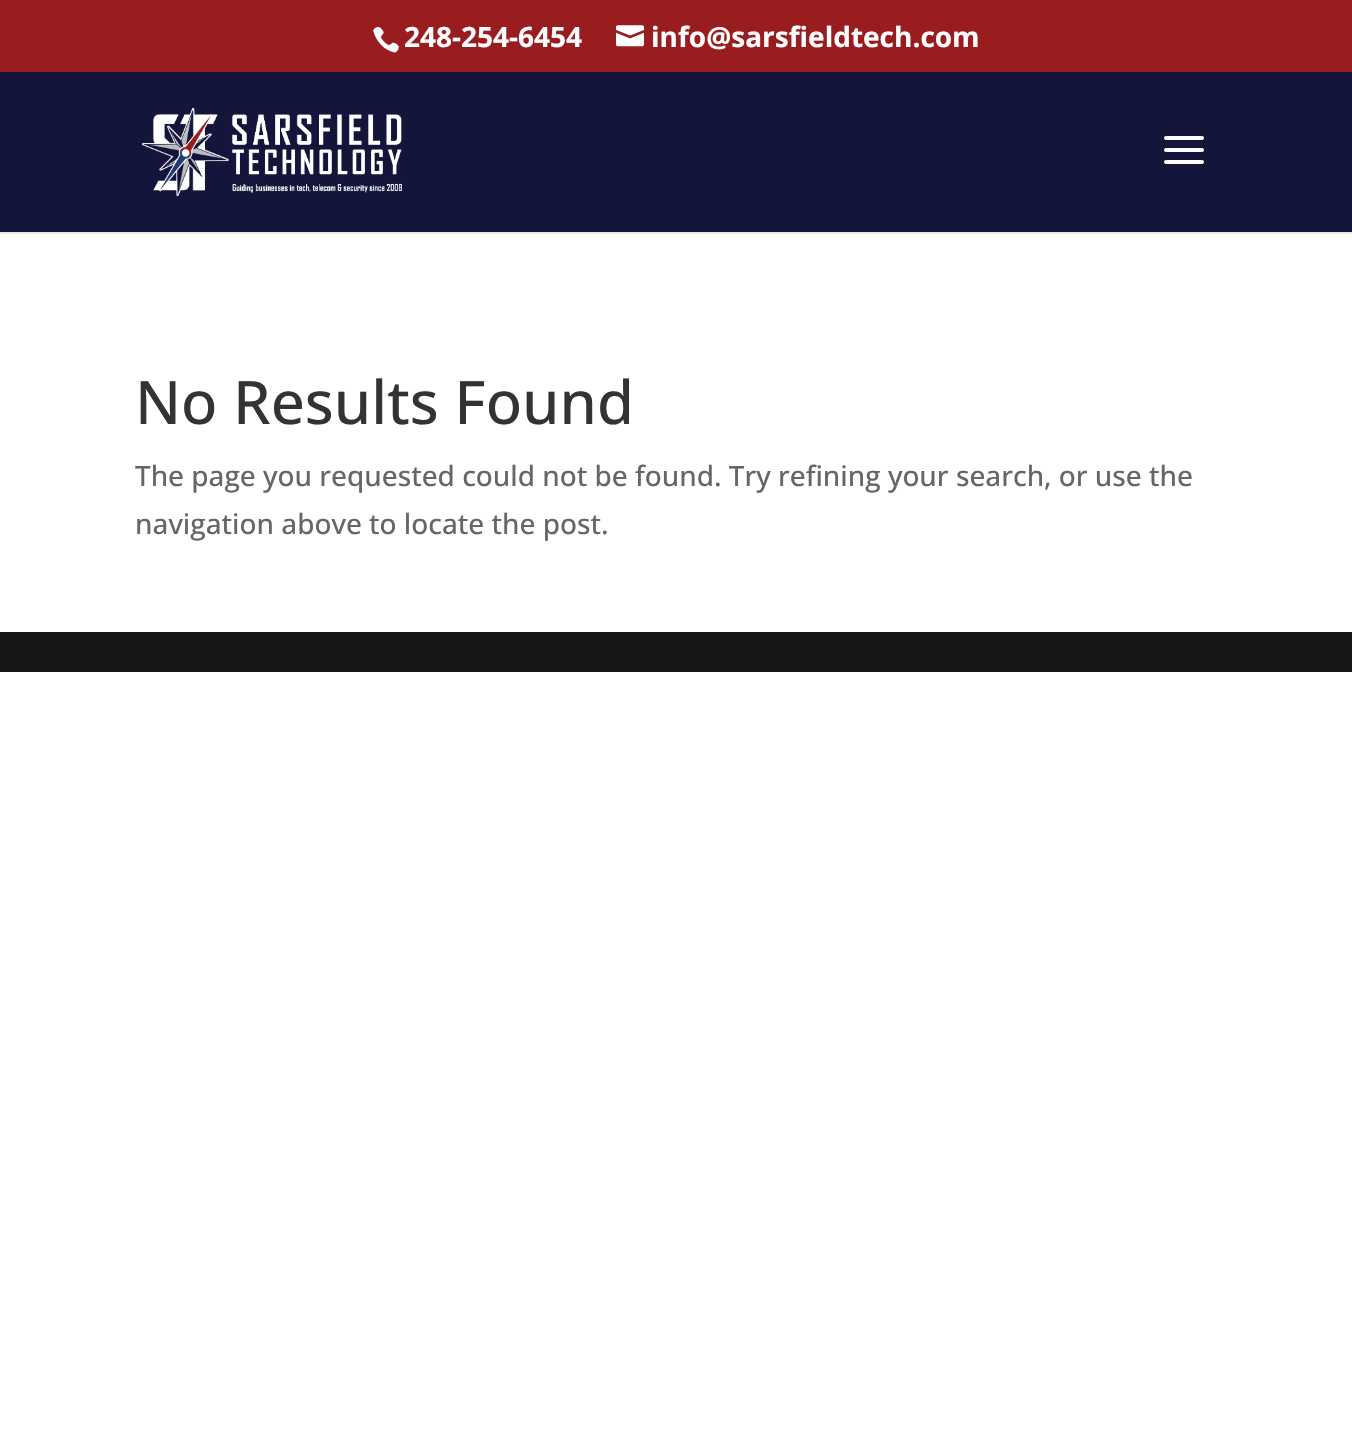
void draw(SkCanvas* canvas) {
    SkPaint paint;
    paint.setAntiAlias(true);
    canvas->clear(0xFFFFFFFF);
    paint.setColor(0xFF991C1F);
    canvas->drawRect(SkRect::MakeXYWH(0, 0, 1352, 72), paint);
    canvas->drawImageRect(SkImages::DeferredFromEncodedData(SkData::MakeFromFileName("img1.png")), SkRect::MakeXYWH(373, 26, 26, 27), SkSamplingOptions());
    SkFont font1(fontMgr->matchFamilyStyle("Open Sans", SkFontStyle::Bold()), 28);
    font1.setSubpixel(true);
    paint.setColor(0xFFFFFFFF);
    canvas->drawString("248-254-6454", 404, 47, font1, paint);
    canvas->drawImageRect(SkImages::DeferredFromEncodedData(SkData::MakeFromFileName("img2.png")), SkRect::MakeXYWH(616, 25, 28, 22), SkSamplingOptions());
    canvas->drawString("info@sarsfieldtech.com", 651, 47, font1, paint);
    paint.setColor(0xFFE6E6E6);
    canvas->drawRect(SkRect::MakeXYWH(0, 232, 1352, 2), paint);
    paint.setColor(0xFF13153A);
    canvas->drawRect(SkRect::MakeXYWH(0, 72, 1352, 160), paint);
    canvas->drawImageRect(SkImages::DeferredFromEncodedData(SkData::MakeFromFileName("img3.png")), SkRect::MakeXYWH(142, 108, 260, 88), SkSamplingOptions());
    canvas->drawImageRect(SkImages::DeferredFromEncodedData(SkData::MakeFromFileName("img4.png")), SkRect::MakeXYWH(1164, 136, 40, 28), SkSamplingOptions());
    SkFont font2(fontMgr->matchFamilyStyle("Open Sans", SkFontStyle(500, SkFontStyle::kNormal_Width, SkFontStyle::kUpright_Slant)), 60);
    font2.setSubpixel(true);
    paint.setColor(0xFF333333);
    canvas->drawString("No Results Found", 135, 424, font2, paint);
    SkFont font3(fontMgr->matchFamilyStyle("Open Sans", SkFontStyle(500, SkFontStyle::kNormal_Width, SkFontStyle::kUpright_Slant)), 28);
    font3.setSubpixel(true);
    paint.setColor(0xFF666666);
    canvas->drawString("The page you requested could not be found. Try refining your search, or use the", 135, 486, font3, paint);
    canvas->drawString("navigation above to locate the post.", 135, 534, font3, paint);
    paint.setColor(0xFF171717);
    canvas->drawRect(SkRect::MakeXYWH(0, 632, 1352, 40), paint);
}
